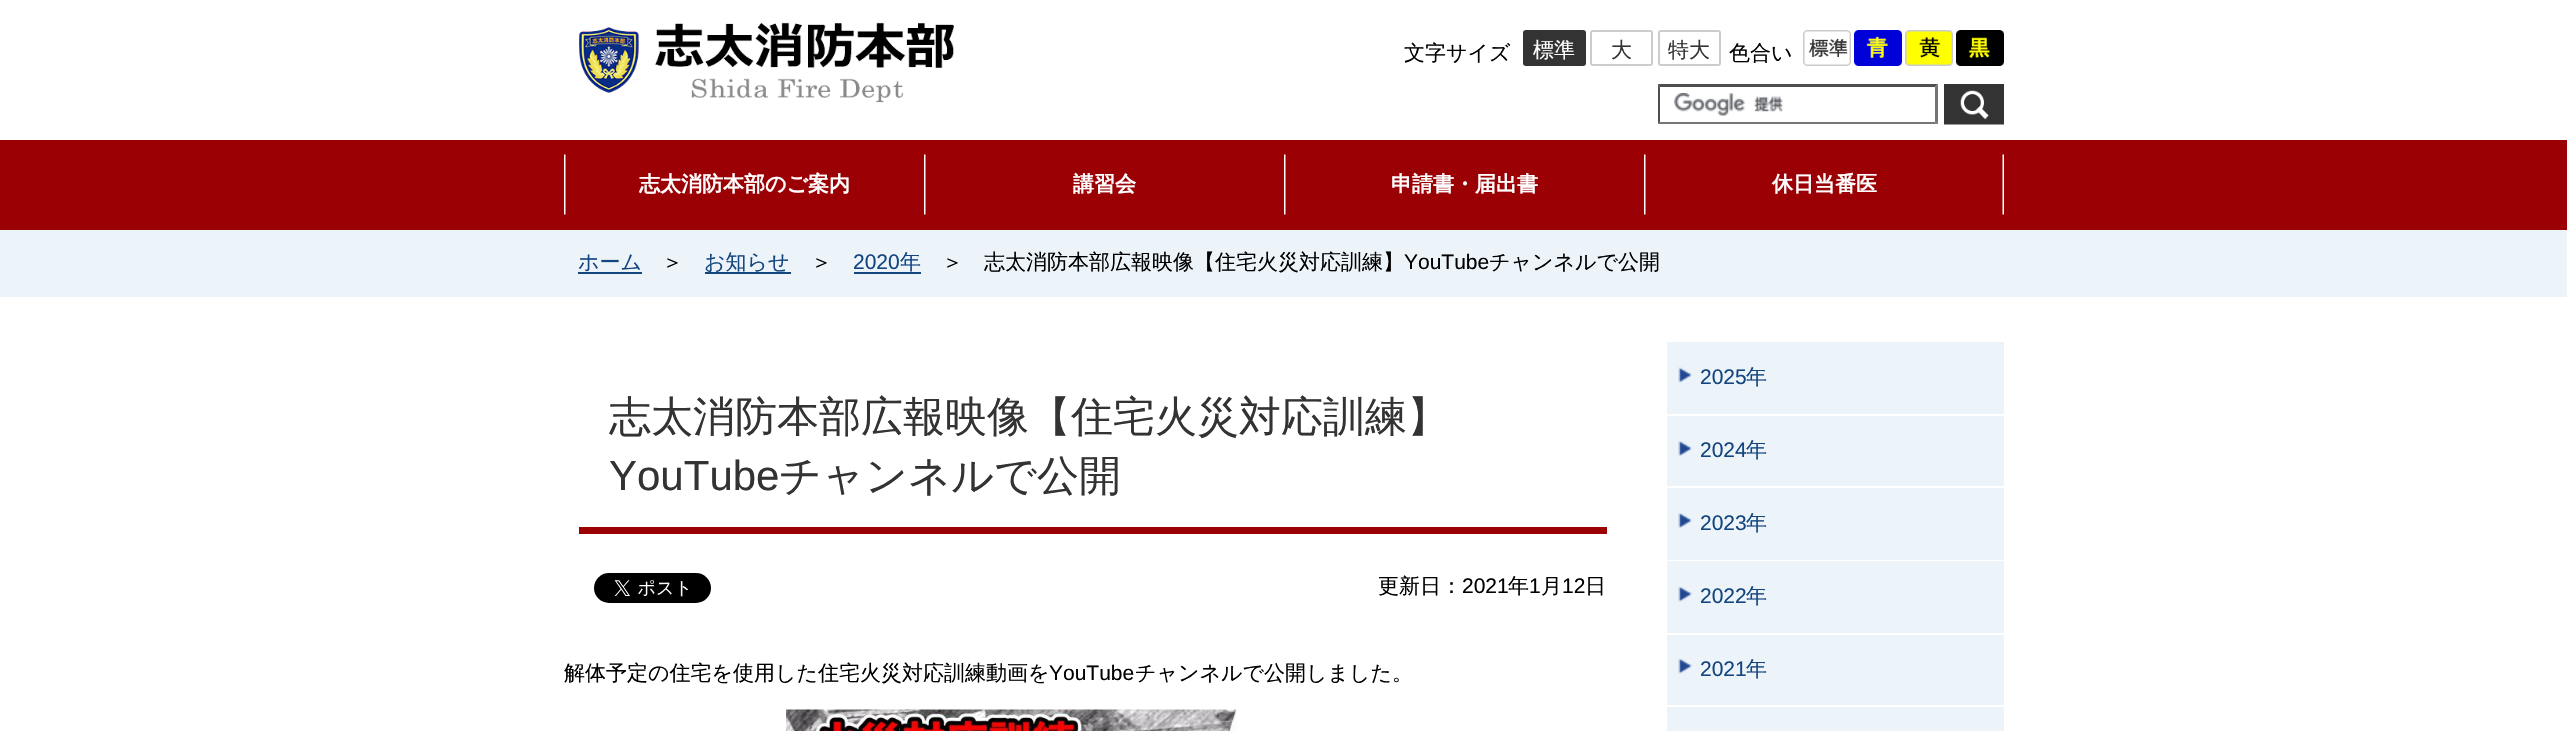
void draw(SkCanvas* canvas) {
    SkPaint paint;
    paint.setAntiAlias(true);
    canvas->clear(0xFFFFFFFF);
    canvas->drawImageRect(SkImages::DeferredFromEncodedData(SkData::MakeFromFileName("img1.png")), SkRect::MakeXYWH(579, 22, 375, 81), SkSamplingOptions());
    SkFont font1(fontMgr->matchFamilyStyle("WenQuanYi Zen Hei", SkFontStyle(500, SkFontStyle::kNormal_Width, SkFontStyle::kUpright_Slant)), 21);
    font1.setSubpixel(true);
    paint.setColor(0xFF000000);
    canvas->drawString("文字サイズ", 1404, 60, font1, paint);
    paint.setColor(0xFF333333);
    canvas->drawRoundRect(SkRect::MakeXYWH(1524, 31, 61, 34), 2, 2, paint);
    paint.setStyle(SkPaint::kStroke_Style);
    paint.setStrokeWidth(2);
    canvas->drawRoundRect(SkRect::MakeXYWH(1524, 31, 61, 34), 2, 2, paint);
    paint.setStyle(SkPaint::kFill_Style);
    paint.setColor(0xFFFFFFFF);
    canvas->drawString("標準", 1533, 57, font1, paint);
    paint.setStyle(SkPaint::kStroke_Style);
    paint.setColor(0xFFCCCCCC);
    canvas->drawRoundRect(SkRect::MakeXYWH(1591, 31, 61, 34), 2, 2, paint);
    paint.setStyle(SkPaint::kFill_Style);
    paint.setColor(0xFF333333);
    canvas->drawString("大", 1611, 57, font1, paint);
    paint.setStyle(SkPaint::kStroke_Style);
    paint.setColor(0xFFCCCCCC);
    canvas->drawRoundRect(SkRect::MakeXYWH(1659, 31, 61, 34), 2, 2, paint);
    paint.setStyle(SkPaint::kFill_Style);
    paint.setColor(0xFF333333);
    canvas->drawString("特大", 1668, 57, font1, paint);
    paint.setColor(0xFF000000);
    canvas->drawString("色合い", 1729, 60, font1, paint);
    canvas->drawImageRect(SkImages::DeferredFromEncodedData(SkData::MakeFromFileName("img2.png")), SkRect::MakeXYWH(1803, 30, 48, 36), SkSamplingOptions());
    canvas->drawImageRect(SkImages::DeferredFromEncodedData(SkData::MakeFromFileName("img3.png")), SkRect::MakeXYWH(1854, 30, 48, 36), SkSamplingOptions());
    canvas->drawImageRect(SkImages::DeferredFromEncodedData(SkData::MakeFromFileName("img4.png")), SkRect::MakeXYWH(1905, 30, 48, 36), SkSamplingOptions());
    canvas->drawImageRect(SkImages::DeferredFromEncodedData(SkData::MakeFromFileName("img5.png")), SkRect::MakeXYWH(1956, 30, 48, 36), SkSamplingOptions());
    canvas->drawImageRect(SkImages::DeferredFromEncodedData(SkData::MakeFromFileName("img6.png")), SkRect::MakeXYWH(1674, 93, 109, 23), SkSamplingOptions());
    paint.setColor(0xFF4F4F4F);
    canvas->drawPath(SkPathBuilder().moveTo(1658, 84).lineTo(1938, 84).lineTo(1935, 87).lineTo(1660, 87).close().detach(), paint);
    paint.setColor(0xFF767676);
    canvas->drawPath(SkPathBuilder().moveTo(1938, 84).lineTo(1938, 124).lineTo(1935, 122).lineTo(1935, 87).close().detach(), paint);
    canvas->drawPath(SkPathBuilder().moveTo(1938, 124).lineTo(1658, 124).lineTo(1660, 122).lineTo(1935, 122).close().detach(), paint);
    paint.setColor(0xFF4F4F4F);
    canvas->drawPath(SkPathBuilder().moveTo(1658, 124).lineTo(1658, 84).lineTo(1660, 87).lineTo(1660, 122).close().detach(), paint);
    canvas->drawImageRect(SkImages::DeferredFromEncodedData(SkData::MakeFromFileName("img7.png")), SkRect::MakeXYWH(1944, 84, 60, 41), SkSamplingOptions());
    paint.setColor(0xFF9B0004);
    canvas->drawRect(SkRect::MakeXYWH(0, 140, 2567, 90), paint);
    canvas->drawImageRect(SkImages::DeferredFromEncodedData(SkData::MakeFromFileName("img8.png")), SkRect::MakeXYWH(564, 154, 2, 61), SkSamplingOptions());
    SkFont font2(fontMgr->matchFamilyStyle("WenQuanYi Zen Hei", SkFontStyle::Bold()), 21);
    font2.setSubpixel(true);
    paint.setColor(0xFFFFFFFF);
    canvas->drawString("志太消防本部のご案内", 639, 191, font2, paint);
    canvas->drawImageRect(SkImages::DeferredFromEncodedData(SkData::MakeFromFileName("img8.png")), SkRect::MakeXYWH(924, 154, 2, 61), SkSamplingOptions());
    canvas->drawString("講習会", 1073, 191, font2, paint);
    canvas->drawImageRect(SkImages::DeferredFromEncodedData(SkData::MakeFromFileName("img8.png")), SkRect::MakeXYWH(1284, 154, 2, 61), SkSamplingOptions());
    canvas->drawString("申請書・届出書", 1391, 191, font2, paint);
    canvas->drawImageRect(SkImages::DeferredFromEncodedData(SkData::MakeFromFileName("img9.png")), SkRect::MakeXYWH(1644, 154, 360, 61), SkSamplingOptions());
    canvas->drawString("休日当番医", 1772, 191, font2, paint);
    paint.setColor(0xFFECF3F9);
    canvas->drawRect(SkRect::MakeXYWH(0, 230, 2567, 67), paint);
    paint.setColor(0xFF13467F);
    canvas->drawString("ホーム", 578, 269, font1, paint);
    canvas->drawRect(SkRect::MakeXYWH(578, 272, 64, 2), paint);
    paint.setColor(0xFF000000);
    canvas->drawString("＞", 662, 269, font1, paint);
    paint.setColor(0xFF13467F);
    canvas->drawRect(SkRect::MakeXYWH(705, 272, 86, 2), paint);
    canvas->drawString("お知らせ", 704, 269, font1, paint);
    paint.setColor(0xFF000000);
    canvas->drawString("＞", 811, 269, font1, paint);
    SkFont font3(fontMgr->matchFamilyStyle("Liberation Sans", SkFontStyle::Normal()), 21);
    font3.setSubpixel(true);
    paint.setColor(0xFF13467F);
    canvas->drawString("2020", 853, 269, font3, paint);
    canvas->drawRect(SkRect::MakeXYWH(854, 272, 67, 2), paint);
    canvas->drawString("年", 900, 269, font1, paint);
    paint.setColor(0xFF000000);
    canvas->drawString("＞", 942, 269, font1, paint);
    canvas->drawString("志太消防本部広報映像【住宅火災対応訓練】", 984, 269, font1, paint);
    canvas->drawString("YouTube", 1404, 269, font3, paint);
    canvas->drawString("チャンネルで公開", 1489, 269, font1, paint);
    paint.setColor(0xFF9B0004);
    canvas->drawRect(SkRect::MakeXYWH(579, 527, 1028, 7), paint);
    SkFont font4(fontMgr->matchFamilyStyle("WenQuanYi Zen Hei", SkFontStyle(500, SkFontStyle::kNormal_Width, SkFontStyle::kUpright_Slant)), 42);
    font4.setSubpixel(true);
    paint.setColor(0xFF333333);
    canvas->drawString("志太消防本部広報映像【住宅火災対応訓練】", 609, 431, font4, paint);
    SkFont font5(fontMgr->matchFamilyStyle("Liberation Sans", SkFontStyle::Normal()), 42);
    font5.setSubpixel(true);
    canvas->drawString("YouTube", 609, 490, font5, paint);
    canvas->drawString("チャンネルで公開", 779, 490, font4, paint);
    canvas->drawImageRect(SkImages::DeferredFromEncodedData(SkData::MakeFromFileName("img10.png")), SkRect::MakeXYWH(594, 573, 117, 30), SkSamplingOptions());
    paint.setColor(0xFF000000);
    canvas->drawString("更新日：", 1378, 593, font1, paint);
    canvas->drawString("2021", 1462, 593, font3, paint);
    canvas->drawString("年", 1508, 593, font1, paint);
    canvas->drawString("1", 1529, 593, font3, paint);
    canvas->drawString("月", 1541, 593, font1, paint);
    canvas->drawString("12", 1562, 593, font3, paint);
    canvas->drawString("日", 1585, 593, font1, paint);
    canvas->drawString("解体予定の住宅を使用した住宅火災対応訓練動画を", 564, 680, font1, paint);
    canvas->drawString("YouTube", 1049, 680, font3, paint);
    canvas->drawString("チャンネルで公開しました。", 1135, 680, font1, paint);
    canvas->drawImageRect(SkImages::DeferredFromEncodedData(SkData::MakeFromFileName("img11.png")), SkRect::MakeXYWH(786, 709, 451, 22), SkSamplingOptions());
    paint.setColor(0xFFECF3F9);
    canvas->drawRect(SkRect::MakeXYWH(1667, 342, 337, 72), paint);
    canvas->drawImageRect(SkImages::DeferredFromEncodedData(SkData::MakeFromFileName("img12.png")), SkRect::MakeXYWH(1678, 367, 14, 16), SkSamplingOptions());
    paint.setColor(0xFF13467F);
    canvas->drawString("2025", 1700, 384, font3, paint);
    canvas->drawString("年", 1746, 384, font1, paint);
    paint.setColor(0xFFECF3F9);
    canvas->drawRect(SkRect::MakeXYWH(1667, 416, 337, 70), paint);
    canvas->drawImageRect(SkImages::DeferredFromEncodedData(SkData::MakeFromFileName("img13.png")), SkRect::MakeXYWH(1678, 441, 14, 15), SkSamplingOptions());
    paint.setColor(0xFF13467F);
    canvas->drawString("2024", 1700, 457, font3, paint);
    canvas->drawString("年", 1746, 457, font1, paint);
    paint.setColor(0xFFECF3F9);
    canvas->drawRect(SkRect::MakeXYWH(1667, 488, 337, 72), paint);
    canvas->drawImageRect(SkImages::DeferredFromEncodedData(SkData::MakeFromFileName("img13.png")), SkRect::MakeXYWH(1678, 513, 14, 15), SkSamplingOptions());
    paint.setColor(0xFF13467F);
    canvas->drawString("2023", 1700, 530, font3, paint);
    canvas->drawString("年", 1746, 530, font1, paint);
    paint.setColor(0xFFECF3F9);
    canvas->drawRect(SkRect::MakeXYWH(1667, 561, 337, 72), paint);
    canvas->drawImageRect(SkImages::DeferredFromEncodedData(SkData::MakeFromFileName("img12.png")), SkRect::MakeXYWH(1678, 586, 14, 16), SkSamplingOptions());
    paint.setColor(0xFF13467F);
    canvas->drawString("2022", 1700, 603, font3, paint);
    canvas->drawString("年", 1746, 603, font1, paint);
    paint.setColor(0xFFECF3F9);
    canvas->drawRect(SkRect::MakeXYWH(1667, 635, 337, 70), paint);
    canvas->drawImageRect(SkImages::DeferredFromEncodedData(SkData::MakeFromFileName("img12.png")), SkRect::MakeXYWH(1678, 658, 14, 16), SkSamplingOptions());
    paint.setColor(0xFF13467F);
    canvas->drawString("2021", 1700, 676, font3, paint);
    canvas->drawString("年", 1746, 676, font1, paint);
    paint.setColor(0xFFECF3F9);
    canvas->drawRect(SkRect::MakeXYWH(1667, 707, 337, 24), paint);
}
